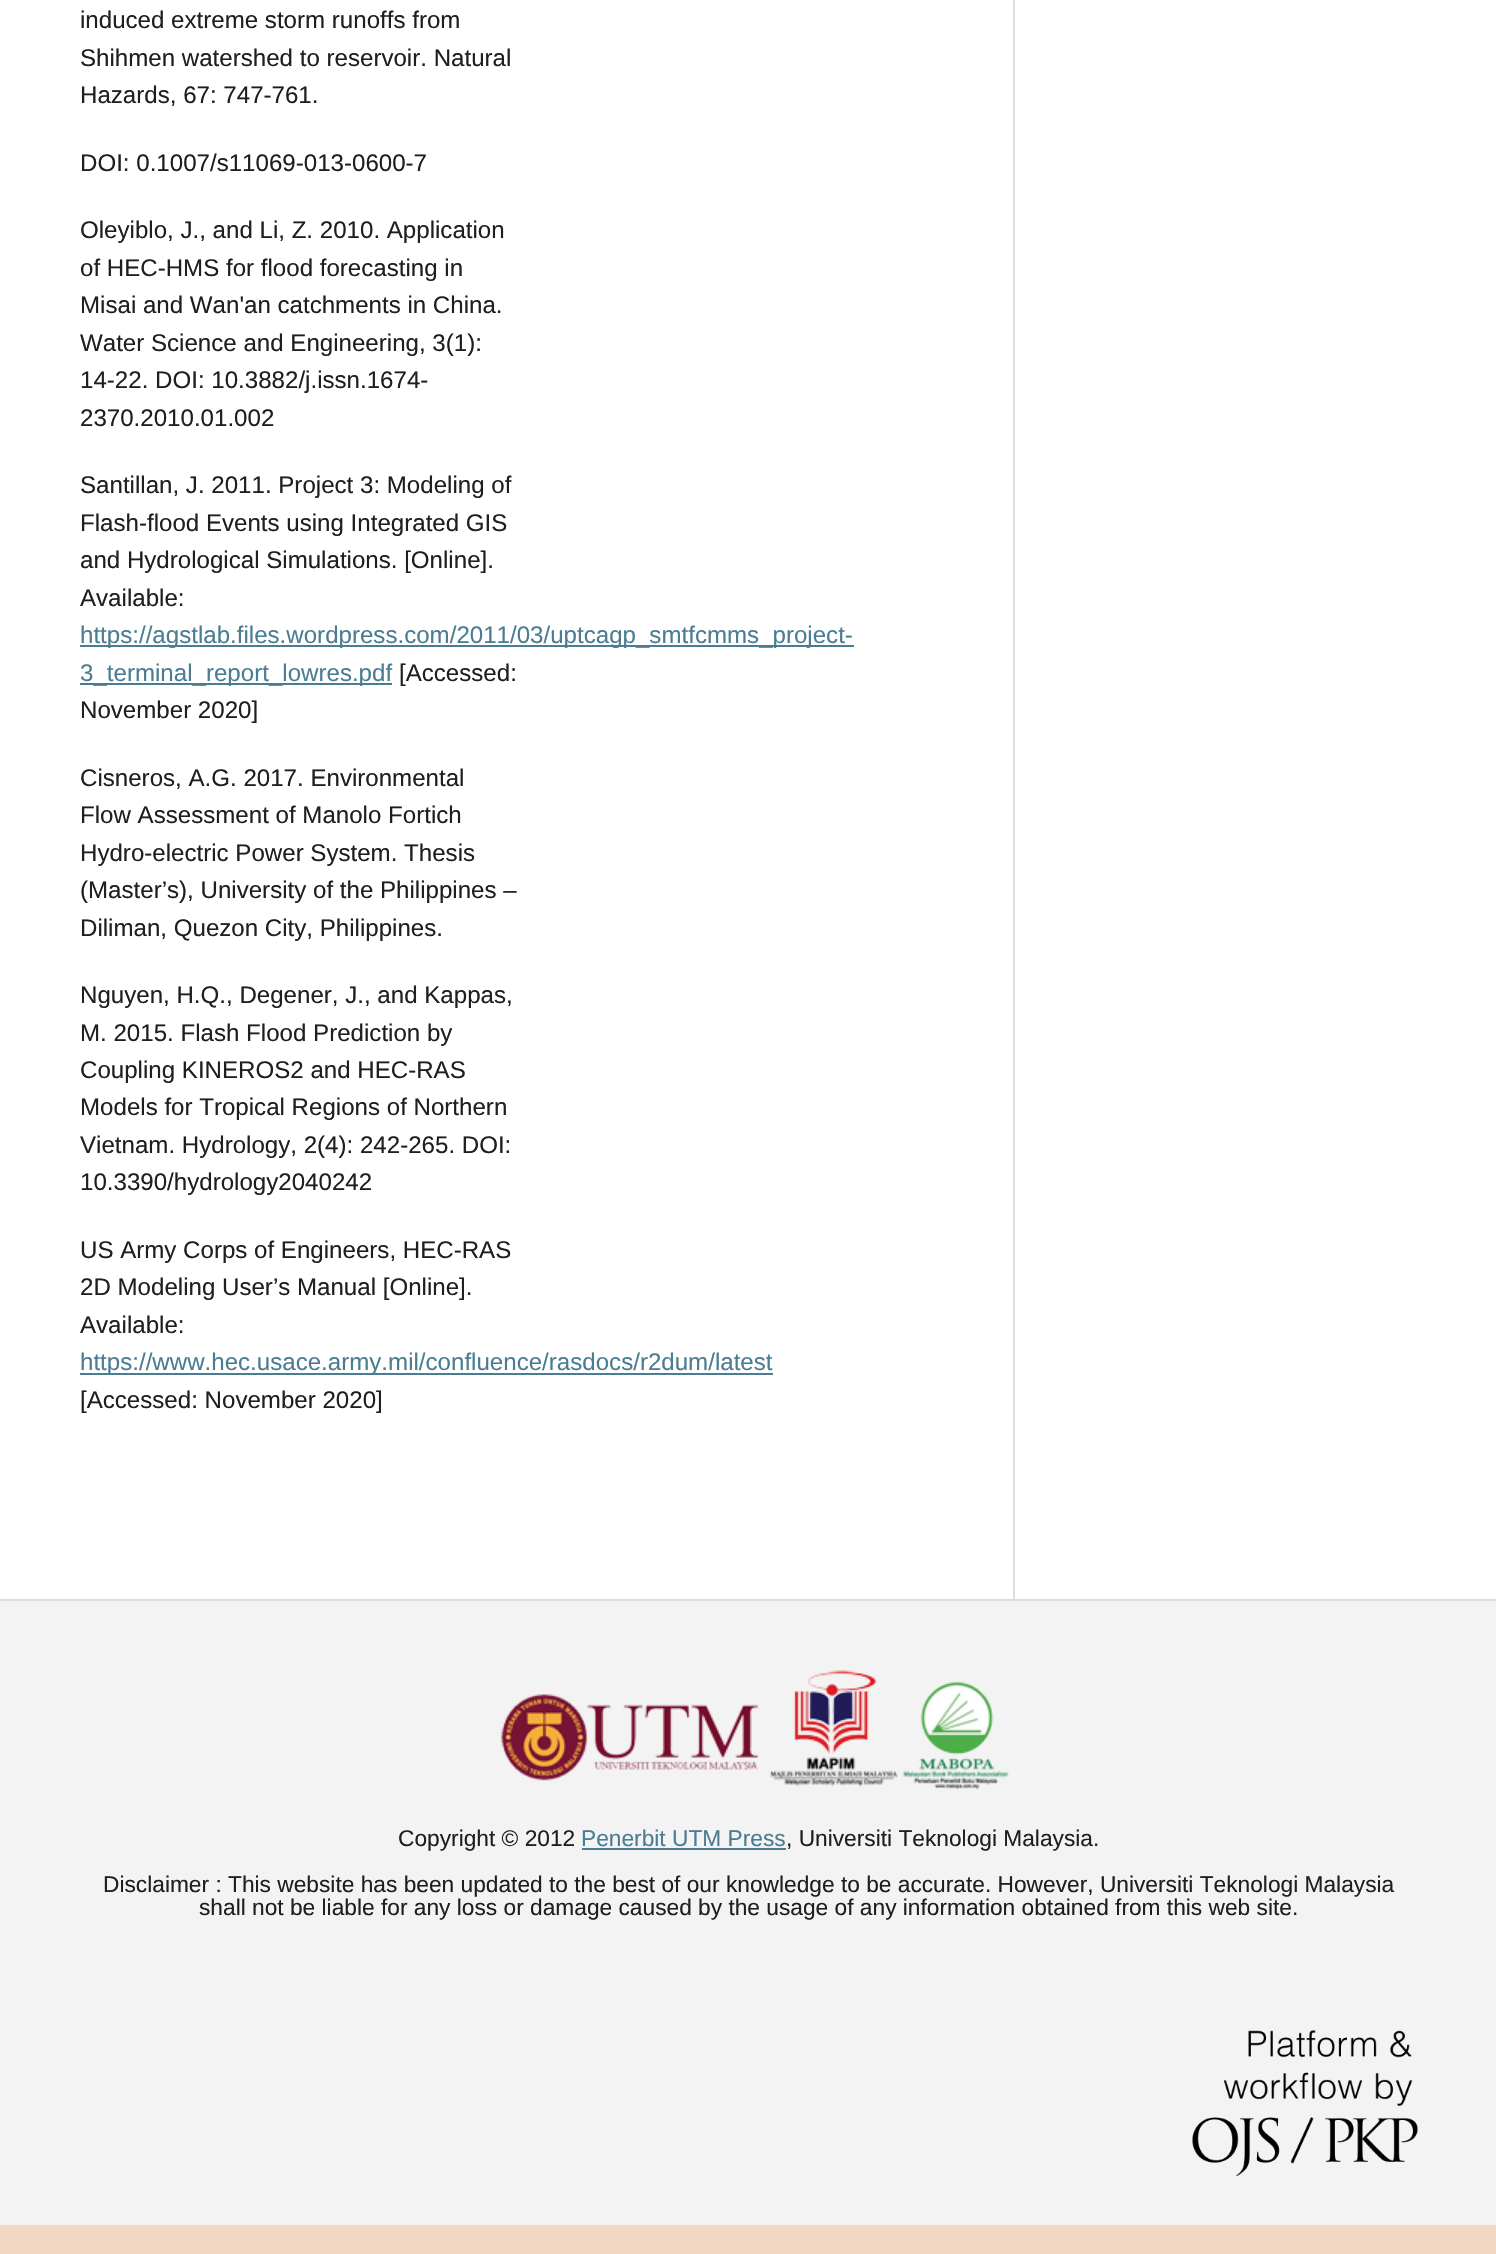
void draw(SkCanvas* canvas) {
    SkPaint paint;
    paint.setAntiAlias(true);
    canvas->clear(0xFFFFFFFF);
    SkFont font1(fontMgr->matchFamilyStyle("Liberation Sans", SkFontStyle::Normal()), 24.1f);
    font1.setSubpixel(true);
    paint.setColor(0xFF1F1F1F);
    canvas->drawString("induced extreme storm runoffs from", 80, 28, font1, paint);
    canvas->drawString("Shihmen watershed to reservoir. Natural", 80, 66, font1, paint);
    canvas->drawString("Hazards, 67: 747-761.", 80, 103, font1, paint);
    canvas->drawString("DOI: 0.1007/s11069-013-0600-7", 80, 171, font1, paint);
    canvas->drawString("Oleyiblo, J., and Li, Z. 2010. Application", 80, 238, font1, paint);
    canvas->drawString("of HEC-HMS for flood forecasting in", 80, 276, font1, paint);
    canvas->drawString("Misai and Wan'an catchments in China.", 80, 313, font1, paint);
    canvas->drawString("Water Science and Engineering, 3(1):", 80, 351, font1, paint);
    canvas->drawString("14-22. DOI: 10.3882/j.issn.1674-", 80, 388, font1, paint);
    canvas->drawString("2370.2010.01.002", 80, 426, font1, paint);
    canvas->drawString("Santillan, J. 2011. Project 3: Modeling of", 80, 493, font1, paint);
    canvas->drawString("Flash-flood Events using Integrated GIS", 80, 531, font1, paint);
    canvas->drawString("and Hydrological Simulations. [Online].", 80, 568, font1, paint);
    canvas->drawString("Available:", 80, 606, font1, paint);
    paint.setColor(0xFF4B7D92);
    canvas->drawRect(SkRect::MakeXYWH(80, 645, 774, 2), paint);
    canvas->drawString("https://agstlab.files.wordpress.com/2011/03/uptcagp_smtfcmms_project-", 80, 643, font1, paint);
    canvas->drawRect(SkRect::MakeXYWH(80, 683, 312, 2), paint);
    canvas->drawString("3_terminal_report_lowres.pdf", 80, 681, font1, paint);
    paint.setColor(0xFF1F1F1F);
    canvas->drawString("[Accessed:", 399, 681, font1, paint);
    canvas->drawString("November 2020]", 80, 718, font1, paint);
    canvas->drawString("Cisneros, A.G. 2017. Environmental", 80, 786, font1, paint);
    canvas->drawString("Flow Assessment of Manolo Fortich", 80, 823, font1, paint);
    canvas->drawString("Hydro-electric Power System. Thesis", 80, 861, font1, paint);
    canvas->drawString("(Master’s), University of the Philippines –", 80, 898, font1, paint);
    canvas->drawString("Diliman, Quezon City, Philippines.", 80, 936, font1, paint);
    canvas->drawString("Nguyen, H.Q., Degener, J., and Kappas,", 80, 1003, font1, paint);
    canvas->drawString("M. 2015. Flash Flood Prediction by", 80, 1041, font1, paint);
    canvas->drawString("Coupling KINEROS2 and HEC-RAS", 80, 1078, font1, paint);
    canvas->drawString("Models for Tropical Regions of Northern", 80, 1115, font1, paint);
    canvas->drawString("Vietnam. Hydrology, 2(4): 242-265. DOI:", 80, 1153, font1, paint);
    canvas->drawString("10.3390/hydrology2040242", 80, 1190, font1, paint);
    canvas->drawString("US Army Corps of Engineers, HEC-RAS", 80, 1258, font1, paint);
    canvas->drawString("2D Modeling User’s Manual [Online].", 80, 1295, font1, paint);
    canvas->drawString("Available:", 80, 1333, font1, paint);
    paint.setColor(0xFF4B7D92);
    canvas->drawRect(SkRect::MakeXYWH(80, 1373, 693, 2), paint);
    canvas->drawString("https://www.hec.usace.army.mil/confluence/rasdocs/r2dum/latest", 80, 1370, font1, paint);
    paint.setColor(0xFF1F1F1F);
    canvas->drawString("[Accessed: November 2020]", 80, 1408, font1, paint);
    paint.setColor(0xFFDDDDDD);
    canvas->drawRect(SkRect::MakeXYWH(1013, 0, 2, 1599), paint);
    paint.setColor(0xFFF3F3F3);
    canvas->drawRect(SkRect::MakeXYWH(0, 1601, 1496, 624), paint);
    paint.setColor(0xFFDDDDDD);
    canvas->drawRect(SkRect::MakeXYWH(0, 1599, 1496, 2), paint);
    paint.setColor(0xFFF2D8C3);
    canvas->drawRect(SkRect::MakeXYWH(0, 2225, 1496, 29), paint);
    canvas->drawImageRect(SkImages::DeferredFromEncodedData(SkData::MakeFromFileName("img1.png")), SkRect::MakeXYWH(500, 1670, 509, 120), SkSamplingOptions());
    SkFont font2(fontMgr->matchFamilyStyle("Liberation Sans", SkFontStyle::Normal()), 22.73f);
    font2.setSubpixel(true);
    paint.setColor(0xFF1F1F1F);
    canvas->drawString("Copyright © 2012", 398, 1846, font2, paint);
    paint.setColor(0xFF4B7D92);
    canvas->drawString("Penerbit UTM Press", 581, 1846, font2, paint);
    canvas->drawRect(SkRect::MakeXYWH(582, 1848, 204, 2), paint);
    paint.setColor(0xFF1F1F1F);
    canvas->drawString(", Universiti Teknologi Malaysia.", 786, 1846, font2, paint);
    canvas->drawString("Disclaimer : This website has been updated to the best of our knowledge to be accurate. However, Universiti Teknologi Malaysia", 103, 1892, font2, paint);
    canvas->drawString("shall not be liable for any loss or damage caused by the usage of any information obtained from this web site.", 199, 1915, font2, paint);
    canvas->drawImageRect(SkImages::DeferredFromEncodedData(SkData::MakeFromFileName("img2.png")), SkRect::MakeXYWH(1192, 2030, 226, 146), SkSamplingOptions());
}
